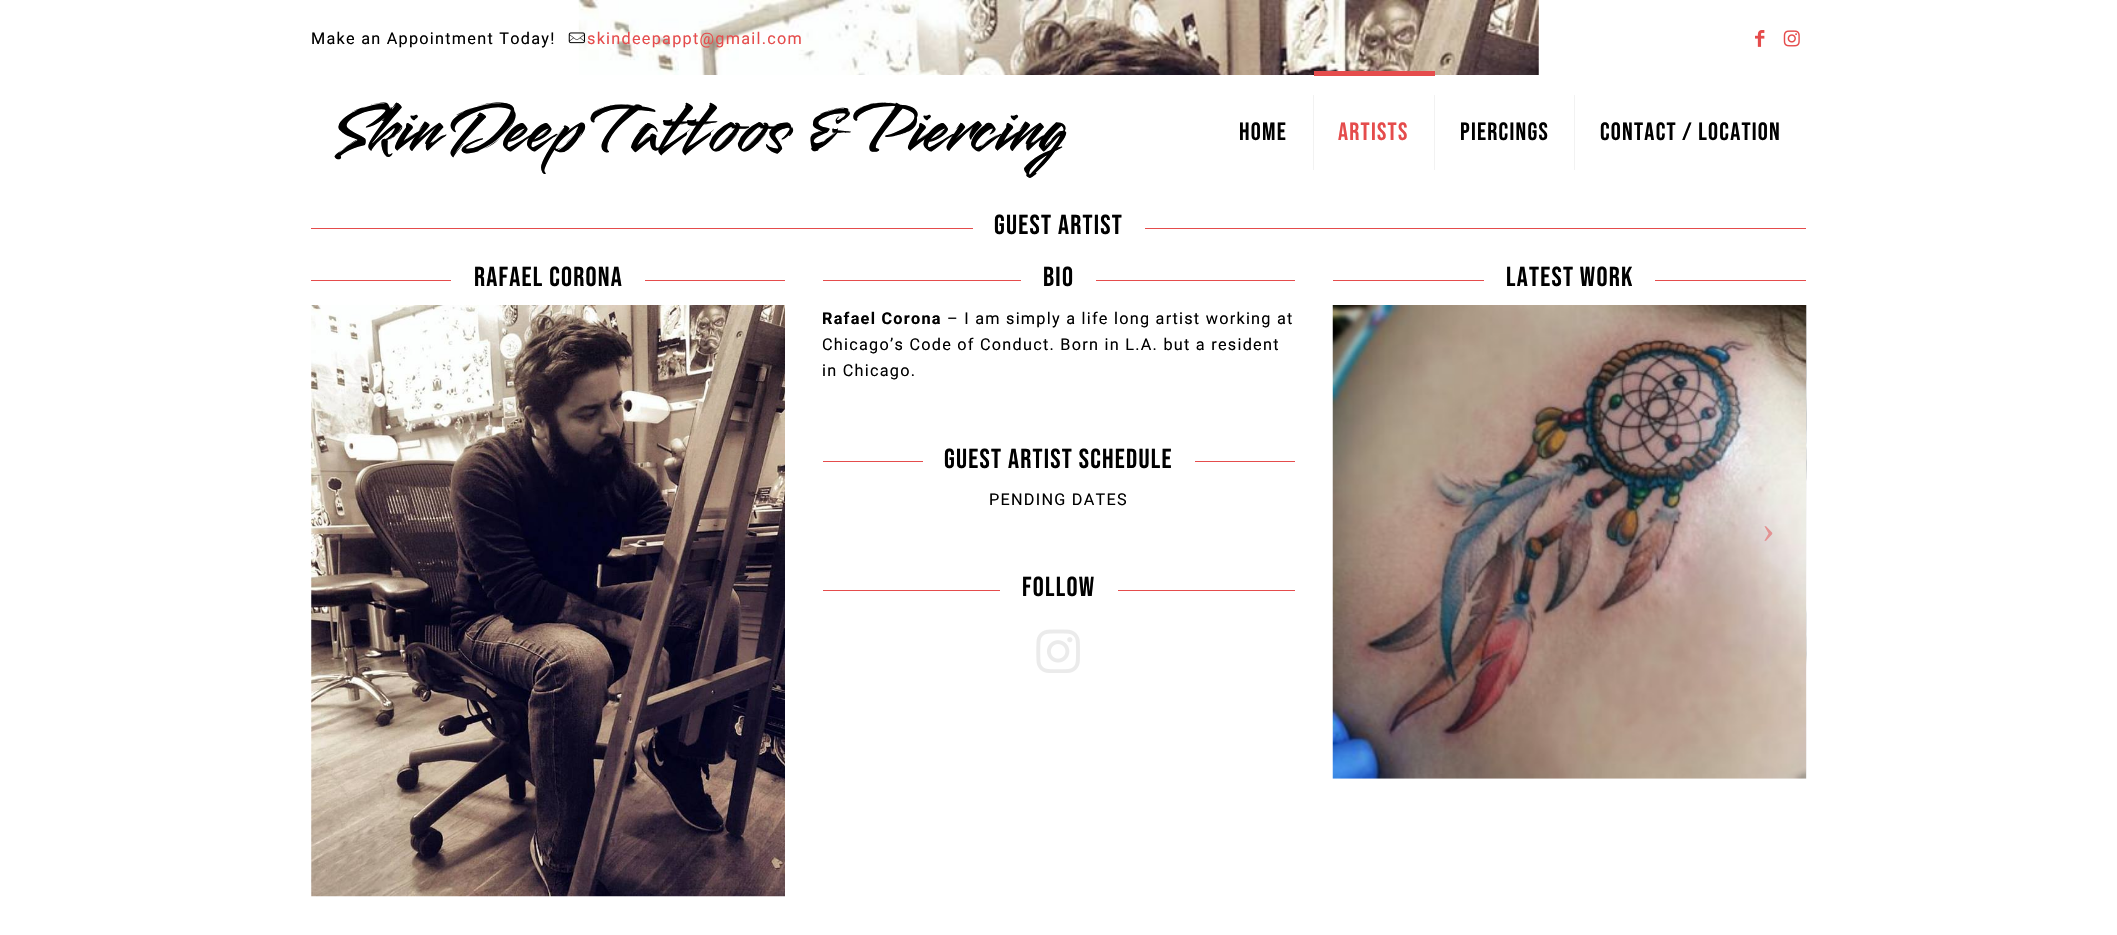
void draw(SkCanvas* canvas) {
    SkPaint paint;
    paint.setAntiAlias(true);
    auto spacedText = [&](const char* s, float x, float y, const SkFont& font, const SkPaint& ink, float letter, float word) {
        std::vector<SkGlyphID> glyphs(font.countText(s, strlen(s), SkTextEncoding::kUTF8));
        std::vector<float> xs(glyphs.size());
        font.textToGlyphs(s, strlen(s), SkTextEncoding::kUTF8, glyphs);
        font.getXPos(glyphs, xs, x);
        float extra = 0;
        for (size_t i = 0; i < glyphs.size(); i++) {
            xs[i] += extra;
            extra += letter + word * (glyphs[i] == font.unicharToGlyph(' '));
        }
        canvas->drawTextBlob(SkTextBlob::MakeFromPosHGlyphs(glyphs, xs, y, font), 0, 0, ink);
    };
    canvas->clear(0xFFFFFFFF);
    canvas->drawImageRect(SkImages::DeferredFromEncodedData(SkData::MakeFromFileName("img1.png")), SkRect::MakeXYWH(578, 0, 961, 75), SkSamplingOptions());
    SkFont font1(fontMgr->matchFamilyStyle("Roboto", SkFontStyle::Normal()), 16.25f);
    font1.setSubpixel(true);
    paint.setColor(0xFF000000);
    spacedText("Make an Appointment Today!", 311, 44, font1, paint, 1.25f, 0);
    canvas->drawImageRect(SkImages::DeferredFromEncodedData(SkData::MakeFromFileName("img2.png")), SkRect::MakeXYWH(568, 32, 17, 12), SkSamplingOptions());
    paint.setColor(0xFFE54C4C);
    spacedText("skindeepappt@gmail.com", 587, 44, font1, paint, 1.25f, 0);
    canvas->drawImageRect(SkImages::DeferredFromEncodedData(SkData::MakeFromFileName("img3.png")), SkRect::MakeXYWH(1755, 30, 10, 17), SkSamplingOptions());
    canvas->drawImageRect(SkImages::DeferredFromEncodedData(SkData::MakeFromFileName("img4.png")), SkRect::MakeXYWH(1783, 30, 17, 17), SkSamplingOptions());
    SkFont font2(fontMgr->matchFamilyStyle("Smooch", SkFontStyle::Normal()), 75);
    font2.setSubpixel(true);
    paint.setColor(0xFF000000);
    spacedText("Skin Deep Tattoos & Piercing", 336, 151, font2, paint, -1.9f, 0);
    paint.setColor(0xFFF2F2F2);
    canvas->drawRect(SkRect::MakeXYWH(1313, 95, 1, 75), paint);
    SkFont font3(fontMgr->matchFamilyStyle("Bebas Neue", SkFontStyle::Normal()), 25);
    font3.setSubpixel(true);
    paint.setColor(0xFF000000);
    spacedText("HOME", 1239, 140, font3, paint, 1.25f, 0);
    paint.setColor(0xFFE54C4C);
    canvas->drawRect(SkRect::MakeXYWH(1314, 71, 121, 5), paint);
    paint.setColor(0xFFF2F2F2);
    canvas->drawRect(SkRect::MakeXYWH(1434, 95, 1, 75), paint);
    paint.setColor(0xFFE54C4C);
    spacedText("ARTISTS", 1338, 140, font3, paint, 1.25f, 0);
    paint.setColor(0xFFF2F2F2);
    canvas->drawRect(SkRect::MakeXYWH(1574, 95, 1, 75), paint);
    paint.setColor(0xFF000000);
    spacedText("PIERCINGS", 1460, 140, font3, paint, 1.25f, 0);
    spacedText("CONTACT / LOCATION", 1600, 140, font3, paint, 1.25f, 0);
    paint.setColor(0xFFE54C4C);
    canvas->drawRect(SkRect::MakeXYWH(311, 228, 662, 1), paint);
    SkFont font4(fontMgr->matchFamilyStyle("Bebas Neue", SkFontStyle::Normal()), 27.5f);
    font4.setSubpixel(true);
    paint.setColor(0xFF000000);
    spacedText("Guest Artist", 994, 234, font4, paint, 1.25f, 0);
    paint.setColor(0xFFE54C4C);
    canvas->drawRect(SkRect::MakeXYWH(1145, 228, 661, 1), paint);
    canvas->drawRect(SkRect::MakeXYWH(311, 280, 140, 1), paint);
    paint.setColor(0xFF000000);
    spacedText("RAFAEL CORONA", 474, 286, font4, paint, 1.25f, 0);
    paint.setColor(0xFFE54C4C);
    canvas->drawRect(SkRect::MakeXYWH(645, 280, 140, 1), paint);
    canvas->drawImageRect(SkImages::DeferredFromEncodedData(SkData::MakeFromFileName("img5.png")), SkRect::MakeXYWH(311, 305, 474, 592), SkSamplingOptions());
    canvas->drawRect(SkRect::MakeXYWH(823, 280, 198, 1), paint);
    paint.setColor(0xFF000000);
    spacedText("BIO", 1043, 286, font4, paint, 1.25f, 0);
    paint.setColor(0xFFE54C4C);
    canvas->drawRect(SkRect::MakeXYWH(1096, 280, 199, 1), paint);
    SkFont font5(fontMgr->matchFamilyStyle("Roboto", SkFontStyle::Bold()), 16.25f);
    font5.setSubpixel(true);
    paint.setColor(0xFF000000);
    spacedText("Rafael Corona", 822, 324, font5, paint, 1.25f, 0);
    spacedText("– I am simply a life long artist working at", 947, 324, font1, paint, 1.25f, 0);
    spacedText("Chicago’s Code of Conduct. Born in L.A. but a resident", 822, 350, font1, paint, 1.25f, 0);
    spacedText("in Chicago.", 822, 376, font1, paint, 1.25f, 0);
    paint.setColor(0xFFE54C4C);
    canvas->drawRect(SkRect::MakeXYWH(823, 461, 100, 1), paint);
    paint.setColor(0xFF000000);
    spacedText("GUEST ARTIST SCHEDULE", 944, 468, font4, paint, 1.25f, 0);
    paint.setColor(0xFFE54C4C);
    canvas->drawRect(SkRect::MakeXYWH(1195, 461, 100, 1), paint);
    paint.setColor(0xFF000000);
    spacedText("PENDING DATES", 989, 505, font1, paint, 1.25f, 0);
    paint.setColor(0xFFE54C4C);
    canvas->drawRect(SkRect::MakeXYWH(823, 590, 177, 1), paint);
    paint.setColor(0xFF000000);
    spacedText("FOLLOW", 1022, 596, font4, paint, 1.25f, 0);
    paint.setColor(0xFFE54C4C);
    canvas->drawRect(SkRect::MakeXYWH(1118, 590, 177, 1), paint);
    canvas->drawImageRect(SkImages::DeferredFromEncodedData(SkData::MakeFromFileName("img6.png")), SkRect::MakeXYWH(1036, 629, 44, 44), SkSamplingOptions());
    canvas->drawRect(SkRect::MakeXYWH(1333, 280, 151, 1), paint);
    paint.setColor(0xFF000000);
    spacedText("LATEST WORK", 1506, 286, font4, paint, 1.25f, 0);
    paint.setColor(0xFFE54C4C);
    canvas->drawRect(SkRect::MakeXYWH(1655, 280, 151, 1), paint);
    canvas->drawImageRect(SkImages::DeferredFromEncodedData(SkData::MakeFromFileName("img7.png")), SkRect::MakeXYWH(1332, 305, 475, 474), SkSamplingOptions());
    canvas->drawImageRect(SkImages::DeferredFromEncodedData(SkData::MakeFromFileName("img8.png")), SkRect::MakeXYWH(1806, 305, 1, 474), SkSamplingOptions());
    SkFont font6(fontMgr->matchFamilyStyle("Liberation Serif", SkFontStyle::Normal()), 38);
    font6.setSubpixel(true);
    paint.setColor(0xFFE39292);
    spacedText("›", 1762, 542, font6, paint, 1.25f, 0);
}
